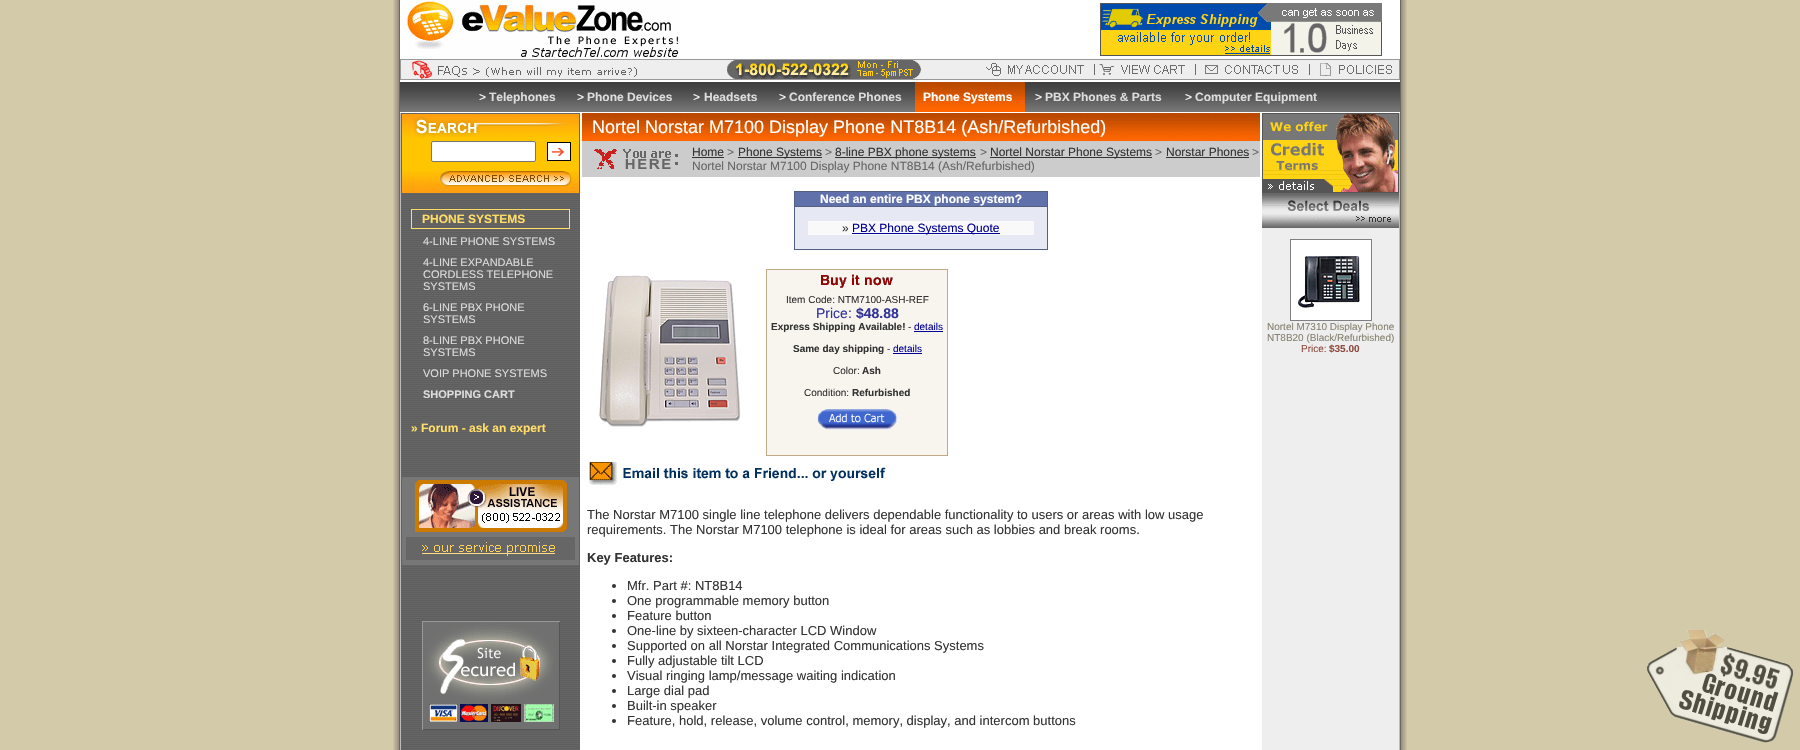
void draw(SkCanvas* canvas) {
    SkPaint paint;
    paint.setAntiAlias(true);
    canvas->clear(0xFFD3CAAA);
    canvas->drawImageRect(SkImages::DeferredFromEncodedData(SkData::MakeFromFileName("img1.png")), SkRect::MakeXYWH(393, 0, 1014, 750), SkSamplingOptions());
    canvas->drawImageRect(SkImages::DeferredFromEncodedData(SkData::MakeFromFileName("img2.png")), SkRect::MakeXYWH(407, 1, 272, 56), SkSamplingOptions());
    canvas->drawImageRect(SkImages::DeferredFromEncodedData(SkData::MakeFromFileName("img3.png")), SkRect::MakeXYWH(1100, 3, 282, 53), SkSamplingOptions());
    paint.setColor(0xFFEEEEEE);
    canvas->drawRect(SkRect::MakeXYWH(400.5f, 59.5f, 999, 20), paint);
    paint.setStyle(SkPaint::kStroke_Style);
    paint.setStrokeWidth(1);
    paint.setColor(0xFF999999);
    canvas->drawRect(SkRect::MakeXYWH(400.5f, 59.5f, 999, 20), paint);
    canvas->drawImageRect(SkImages::DeferredFromEncodedData(SkData::MakeFromFileName("img4.png")), SkRect::MakeXYWH(412, 60, 225, 19), SkSamplingOptions());
    canvas->drawImageRect(SkImages::DeferredFromEncodedData(SkData::MakeFromFileName("img5.png")), SkRect::MakeXYWH(727, 60, 194, 19), SkSamplingOptions());
    canvas->drawImageRect(SkImages::DeferredFromEncodedData(SkData::MakeFromFileName("img6.png")), SkRect::MakeXYWH(986, 63, 109, 13), SkSamplingOptions());
    canvas->drawImageRect(SkImages::DeferredFromEncodedData(SkData::MakeFromFileName("img7.png")), SkRect::MakeXYWH(1099, 64, 97, 11), SkSamplingOptions());
    canvas->drawImageRect(SkImages::DeferredFromEncodedData(SkData::MakeFromFileName("img8.png")), SkRect::MakeXYWH(1205, 64, 105, 11), SkSamplingOptions());
    canvas->drawImageRect(SkImages::DeferredFromEncodedData(SkData::MakeFromFileName("img9.png")), SkRect::MakeXYWH(1319, 63, 73, 13), SkSamplingOptions());
    canvas->drawImageRect(SkImages::DeferredFromEncodedData(SkData::MakeFromFileName("img10.png")), SkRect::MakeXYWH(400, 82, 1000, 30), SkSamplingOptions());
    SkFont font1(fontMgr->matchFamilyStyle("Liberation Sans", SkFontStyle::Normal()), 12);
    font1.setSubpixel(true);
    paint.setStyle(SkPaint::kFill_Style);
    paint.setColor(0xFFFFFFFF);
    canvas->drawString(">", 479, 101, font1, paint);
    SkFont font2(fontMgr->matchFamilyStyle("Liberation Sans", SkFontStyle::Bold()), 12);
    font2.setSubpixel(true);
    paint.setColor(0xFFDDDDDD);
    canvas->drawString("Telephones", 489, 101, font2, paint);
    paint.setColor(0xFFFFFFFF);
    canvas->drawString(">", 577, 101, font1, paint);
    paint.setColor(0xFFDDDDDD);
    canvas->drawString("Phone Devices", 587, 101, font2, paint);
    paint.setColor(0xFFFFFFFF);
    canvas->drawString(">", 693, 101, font1, paint);
    paint.setColor(0xFFDDDDDD);
    canvas->drawString("Headsets", 704, 101, font2, paint);
    paint.setColor(0xFFFFFFFF);
    canvas->drawString(">", 779, 101, font1, paint);
    paint.setColor(0xFFDDDDDD);
    canvas->drawString("Conference Phones", 789, 101, font2, paint);
    paint.setColor(0xFFFF6600);
    canvas->drawRect(SkRect::MakeXYWH(915, 108, 110, 4), paint);
    canvas->drawImageRect(SkImages::DeferredFromEncodedData(SkData::MakeFromFileName("img11.png")), SkRect::MakeXYWH(915, 82, 110, 26), SkSamplingOptions());
    paint.setColor(0xFFFFFFFF);
    canvas->drawString("Phone Systems", 923, 101, font2, paint);
    canvas->drawString(">", 1035, 101, font1, paint);
    paint.setColor(0xFFDDDDDD);
    canvas->drawString("PBX Phones & Parts", 1045, 101, font2, paint);
    paint.setColor(0xFFFFFFFF);
    canvas->drawString(">", 1185, 101, font1, paint);
    paint.setColor(0xFFDDDDDD);
    canvas->drawString("Computer Equipment", 1195, 101, font2, paint);
    paint.setColor(0xFFBCBCBC);
    canvas->drawRect(SkRect::MakeXYWH(400, 113, 1, 637), paint);
    paint.setColor(0xFF666666);
    canvas->drawRect(SkRect::MakeXYWH(401, 749, 179, 1), paint);
    canvas->drawImageRect(SkImages::DeferredFromEncodedData(SkData::MakeFromFileName("img12.png")), SkRect::MakeXYWH(401, 194, 179, 555), SkSamplingOptions());
    paint.setColor(0xFFFFC600);
    canvas->drawRect(SkRect::MakeXYWH(402, 138, 177, 33), paint);
    paint.setStyle(SkPaint::kStroke_Style);
    paint.setColor(0xFF666666);
    canvas->drawRect(SkRect::MakeXYWH(401.5f, 113.5f, 178, 80), paint);
    canvas->drawImageRect(SkImages::DeferredFromEncodedData(SkData::MakeFromFileName("img13.png")), SkRect::MakeXYWH(402, 114, 177, 24), SkSamplingOptions());
    paint.setStyle(SkPaint::kFill_Style);
    paint.setColor(0xFFFFFFFF);
    canvas->drawRoundRect(SkRect::MakeXYWH(431.5f, 141.5f, 104, 20), 1.5f, 1.5f, paint);
    paint.setStyle(SkPaint::kStroke_Style);
    paint.setColor(0xFF767676);
    canvas->drawRoundRect(SkRect::MakeXYWH(431.5f, 141.5f, 104, 20), 1.5f, 1.5f, paint);
    canvas->drawImageRect(SkImages::DeferredFromEncodedData(SkData::MakeFromFileName("img14.png")), SkRect::MakeXYWH(547, 142, 24, 19), SkSamplingOptions());
    canvas->drawImageRect(SkImages::DeferredFromEncodedData(SkData::MakeFromFileName("img15.png")), SkRect::MakeXYWH(402, 171, 177, 22), SkSamplingOptions());
    paint.setColor(0xFFFFDD66);
    canvas->drawRect(SkRect::MakeXYWH(411.5f, 209.5f, 158, 19), paint);
    paint.setStyle(SkPaint::kFill_Style);
    canvas->drawString("PHONE SYSTEMS", 422, 223, font2, paint);
    SkFont font3(fontMgr->matchFamilyStyle("Liberation Sans", SkFontStyle::Normal()), 11);
    font3.setSubpixel(true);
    paint.setColor(0xFFDDDDDD);
    canvas->drawString("4-LINE PHONE SYSTEMS", 423, 245, font3, paint);
    canvas->drawString("4-LINE EXPANDABLE", 423, 266, font3, paint);
    canvas->drawString("CORDLESS TELEPHONE", 423, 278, font3, paint);
    canvas->drawString("SYSTEMS", 423, 290, font3, paint);
    canvas->drawString("6-LINE PBX PHONE", 423, 311, font3, paint);
    canvas->drawString("SYSTEMS", 423, 323, font3, paint);
    canvas->drawString("8-LINE PBX PHONE", 423, 344, font3, paint);
    canvas->drawString("SYSTEMS", 423, 356, font3, paint);
    canvas->drawString("VOIP PHONE SYSTEMS", 423, 377, font3, paint);
    SkFont font4(fontMgr->matchFamilyStyle("Liberation Sans", SkFontStyle::Bold()), 11);
    font4.setSubpixel(true);
    canvas->drawString("SHOPPING CART", 423, 398, font4, paint);
    paint.setColor(0xFFFFDD66);
    canvas->drawString("» Forum - ask an expert", 411, 432, font2, paint);
    paint.setColor(0xFF777777);
    canvas->drawRect(SkRect::MakeXYWH(402, 477, 177, 88), paint);
    canvas->drawImageRect(SkImages::DeferredFromEncodedData(SkData::MakeFromFileName("img16.png")), SkRect::MakeXYWH(415, 480, 152, 52), SkSamplingOptions());
    canvas->drawImageRect(SkImages::DeferredFromEncodedData(SkData::MakeFromFileName("img17.png")), SkRect::MakeXYWH(406, 537, 169, 23), SkSamplingOptions());
    canvas->drawImageRect(SkImages::DeferredFromEncodedData(SkData::MakeFromFileName("img18.png")), SkRect::MakeXYWH(422, 621, 138, 109), SkSamplingOptions());
    canvas->drawImageRect(SkImages::DeferredFromEncodedData(SkData::MakeFromFileName("img19.png")), SkRect::MakeXYWH(582, 113, 678, 28), SkSamplingOptions());
    SkFont font5(fontMgr->matchFamilyStyle("Liberation Sans", SkFontStyle::Normal()), 18);
    font5.setSubpixel(true);
    paint.setColor(0xFFFFFFFF);
    canvas->drawString("Nortel Norstar M7100 Display Phone NT8B14 (Ash/Refurbished)", 592, 133, font5, paint);
    paint.setColor(0xFFCCCCCC);
    canvas->drawRect(SkRect::MakeXYWH(582, 141, 678, 36), paint);
    canvas->drawImageRect(SkImages::DeferredFromEncodedData(SkData::MakeFromFileName("img20.png")), SkRect::MakeXYWH(594, 149, 84, 20), SkSamplingOptions());
    paint.setColor(0xFF333333);
    canvas->drawString("Home", 692, 156, font1, paint);
    canvas->drawRect(SkRect::MakeXYWH(692, 157, 32, 1), paint);
    paint.setColor(0xFF666666);
    canvas->drawString(">", 727, 156, font1, paint);
    paint.setColor(0xFF333333);
    canvas->drawRect(SkRect::MakeXYWH(738, 157, 84, 1), paint);
    canvas->drawString("Phone Systems", 738, 156, font1, paint);
    paint.setColor(0xFF666666);
    canvas->drawString(">", 825, 156, font1, paint);
    paint.setColor(0xFF333333);
    canvas->drawRect(SkRect::MakeXYWH(835, 157, 141, 1), paint);
    canvas->drawString("8-line PBX phone systems", 835, 156, font1, paint);
    paint.setColor(0xFF666666);
    canvas->drawString(">", 980, 156, font1, paint);
    paint.setColor(0xFF333333);
    canvas->drawRect(SkRect::MakeXYWH(990, 157, 162, 1), paint);
    canvas->drawString("Nortel Norstar Phone Systems", 990, 156, font1, paint);
    paint.setColor(0xFF666666);
    canvas->drawString(">", 1155, 156, font1, paint);
    paint.setColor(0xFF333333);
    canvas->drawString("Norstar Phones", 1166, 156, font1, paint);
    canvas->drawRect(SkRect::MakeXYWH(1166, 157, 83, 1), paint);
    paint.setColor(0xFF666666);
    canvas->drawString(">", 1252, 156, font1, paint);
    canvas->drawString("Nortel Norstar M7100 Display Phone NT8B14 (Ash/Refurbished)", 692, 170, font1, paint);
    paint.setColor(0xFF556080);
    canvas->drawRect(SkRect::MakeXYWH(794, 191, 254, 59), paint);
    paint.setColor(0xFF6070AA);
    canvas->drawRect(SkRect::MakeXYWH(795, 192, 252, 14), paint);
    paint.setColor(0xFFFFFFFF);
    canvas->drawString("Need an entire PBX phone system?", 820, 203, font2, paint);
    paint.setColor(0xFFE6E9F3);
    canvas->drawRect(SkRect::MakeXYWH(795, 207, 252, 42), paint);
    paint.setColor(0xFFF9F9F9);
    canvas->drawRect(SkRect::MakeXYWH(808, 221, 226, 14), paint);
    paint.setColor(0xFF333333);
    canvas->drawString("»", 842, 232, font1, paint);
    paint.setColor(0xFF000099);
    canvas->drawRect(SkRect::MakeXYWH(852, 233, 148, 1), paint);
    canvas->drawString("PBX Phone Systems Quote", 852, 232, font1, paint);
    canvas->drawImageRect(SkImages::DeferredFromEncodedData(SkData::MakeFromFileName("img21.png")), SkRect::MakeXYWH(599, 275, 142, 152), SkSamplingOptions());
    paint.setColor(0xFFF8F5EF);
    canvas->drawRect(SkRect::MakeXYWH(766.5f, 269.5f, 181, 186), paint);
    paint.setStyle(SkPaint::kStroke_Style);
    paint.setColor(0xFFBFA987);
    canvas->drawRect(SkRect::MakeXYWH(766.5f, 269.5f, 181, 186), paint);
    canvas->drawImageRect(SkImages::DeferredFromEncodedData(SkData::MakeFromFileName("img22.png")), SkRect::MakeXYWH(821, 274, 72, 14), SkSamplingOptions());
    SkFont font6(fontMgr->matchFamilyStyle("Liberation Sans", SkFontStyle::Normal()), 10);
    font6.setSubpixel(true);
    paint.setStyle(SkPaint::kFill_Style);
    paint.setColor(0xFF333333);
    canvas->drawString("Item Code: NTM7100-ASH-REF", 786, 303, font6, paint);
    SkFont font7(fontMgr->matchFamilyStyle("Liberation Sans", SkFontStyle::Normal()), 14);
    font7.setSubpixel(true);
    paint.setColor(0xFF333399);
    canvas->drawString("Price:", 816, 318, font7, paint);
    SkFont font8(fontMgr->matchFamilyStyle("Liberation Sans", SkFontStyle::Bold()), 14);
    font8.setSubpixel(true);
    canvas->drawString("$48.88", 856, 318, font8, paint);
    SkFont font9(fontMgr->matchFamilyStyle("Liberation Sans", SkFontStyle::Bold()), 10);
    font9.setSubpixel(true);
    paint.setColor(0xFF333333);
    canvas->drawString("Express Shipping Available!", 771, 330, font9, paint);
    canvas->drawString("-", 908, 330, font6, paint);
    paint.setColor(0xFF000099);
    canvas->drawString("details", 914, 330, font6, paint);
    canvas->drawRect(SkRect::MakeXYWH(914, 331, 29, 1), paint);
    paint.setColor(0xFF333333);
    canvas->drawString("Same day shipping", 793, 352, font9, paint);
    canvas->drawString("-", 887, 352, font6, paint);
    paint.setColor(0xFF000099);
    canvas->drawString("details", 893, 352, font6, paint);
    canvas->drawRect(SkRect::MakeXYWH(893, 353, 29, 1), paint);
    paint.setColor(0xFF333333);
    canvas->drawString("Color:", 833, 374, font6, paint);
    canvas->drawString("Ash", 862, 374, font9, paint);
    canvas->drawString("Condition:", 804, 396, font6, paint);
    canvas->drawString("Refurbished", 852, 396, font9, paint);
    canvas->drawImageRect(SkImages::DeferredFromEncodedData(SkData::MakeFromFileName("img23.png")), SkRect::MakeXYWH(817, 409, 80, 21), SkSamplingOptions());
    canvas->drawImageRect(SkImages::DeferredFromEncodedData(SkData::MakeFromFileName("img24.png")), SkRect::MakeXYWH(587, 461, 299, 27), SkSamplingOptions());
    SkFont font10(fontMgr->matchFamilyStyle("Liberation Sans", SkFontStyle::Normal()), 13);
    font10.setSubpixel(true);
    canvas->drawString("The Norstar M7100 single line telephone delivers dependable functionality to users or areas with low usage", 587, 519, font10, paint);
    canvas->drawString("requirements. The Norstar M7100 telephone is ideal for areas such as lobbies and break rooms.", 587, 534, font10, paint);
    SkFont font11(fontMgr->matchFamilyStyle("Liberation Sans", SkFontStyle::Bold()), 13);
    font11.setSubpixel(true);
    canvas->drawString("Key Features:", 587, 562, font11, paint);
    canvas->drawCircle(614, 586, 2, paint);
    canvas->drawString("Mfr. Part #: NT8B14", 627, 590, font10, paint);
    canvas->drawCircle(614, 601, 2, paint);
    canvas->drawString("One programmable memory button", 627, 605, font10, paint);
    canvas->drawCircle(614, 616, 2, paint);
    canvas->drawString("Feature button", 627, 620, font10, paint);
    canvas->drawCircle(614, 631, 2, paint);
    canvas->drawString("One-line by sixteen-character LCD Window", 627, 635, font10, paint);
    canvas->drawCircle(614, 646, 2, paint);
    canvas->drawString("Supported on all Norstar Integrated Communications Systems", 627, 650, font10, paint);
    canvas->drawCircle(614, 661, 2, paint);
    canvas->drawString("Fully adjustable tilt LCD", 627, 665, font10, paint);
    canvas->drawCircle(614, 676, 2, paint);
    canvas->drawString("Visual ringing lamp/message waiting indication", 627, 680, font10, paint);
    canvas->drawCircle(614, 691, 2, paint);
    canvas->drawString("Large dial pad", 627, 695, font10, paint);
    canvas->drawCircle(614, 706, 2, paint);
    canvas->drawString("Built-in speaker", 627, 710, font10, paint);
    canvas->drawCircle(614, 721, 2, paint);
    canvas->drawString("Feature, hold, release, volume control, memory, display, and intercom buttons", 627, 725, font10, paint);
    paint.setColor(0xFFEEEEEE);
    canvas->drawRect(SkRect::MakeXYWH(1262, 228, 137, 522), paint);
    canvas->drawImageRect(SkImages::DeferredFromEncodedData(SkData::MakeFromFileName("img25.png")), SkRect::MakeXYWH(1262, 113, 137, 80), SkSamplingOptions());
    canvas->drawImageRect(SkImages::DeferredFromEncodedData(SkData::MakeFromFileName("img26.png")), SkRect::MakeXYWH(1262, 193, 137, 35), SkSamplingOptions());
    paint.setStyle(SkPaint::kStroke_Style);
    paint.setColor(0xFF808080);
    canvas->drawRect(SkRect::MakeXYWH(1290.5f, 239.5f, 81, 81), paint);
    canvas->drawImageRect(SkImages::DeferredFromEncodedData(SkData::MakeFromFileName("img27.png")), SkRect::MakeXYWH(1291, 240, 80, 80), SkSamplingOptions());
    paint.setStyle(SkPaint::kFill_Style);
    paint.setColor(0xFF868270);
    canvas->drawString("Nortel M7310 Display Phone", 1267, 330, font6, paint);
    canvas->drawString("NT8B20 (Black/Refurbished)", 1267, 341, font6, paint);
    paint.setColor(0xFF8E4B41);
    canvas->drawString("Price:", 1301, 352, font6, paint);
    canvas->drawString("$35.00", 1329, 352, font9, paint);
    paint.setColor(0xFFBCBCBC);
    canvas->drawRect(SkRect::MakeXYWH(1399, 113, 1, 637), paint);
    canvas->drawImageRect(SkImages::DeferredFromEncodedData(SkData::MakeFromFileName("img28.png")), SkRect::MakeXYWH(1647, 629, 147, 114), SkSamplingOptions());
}
